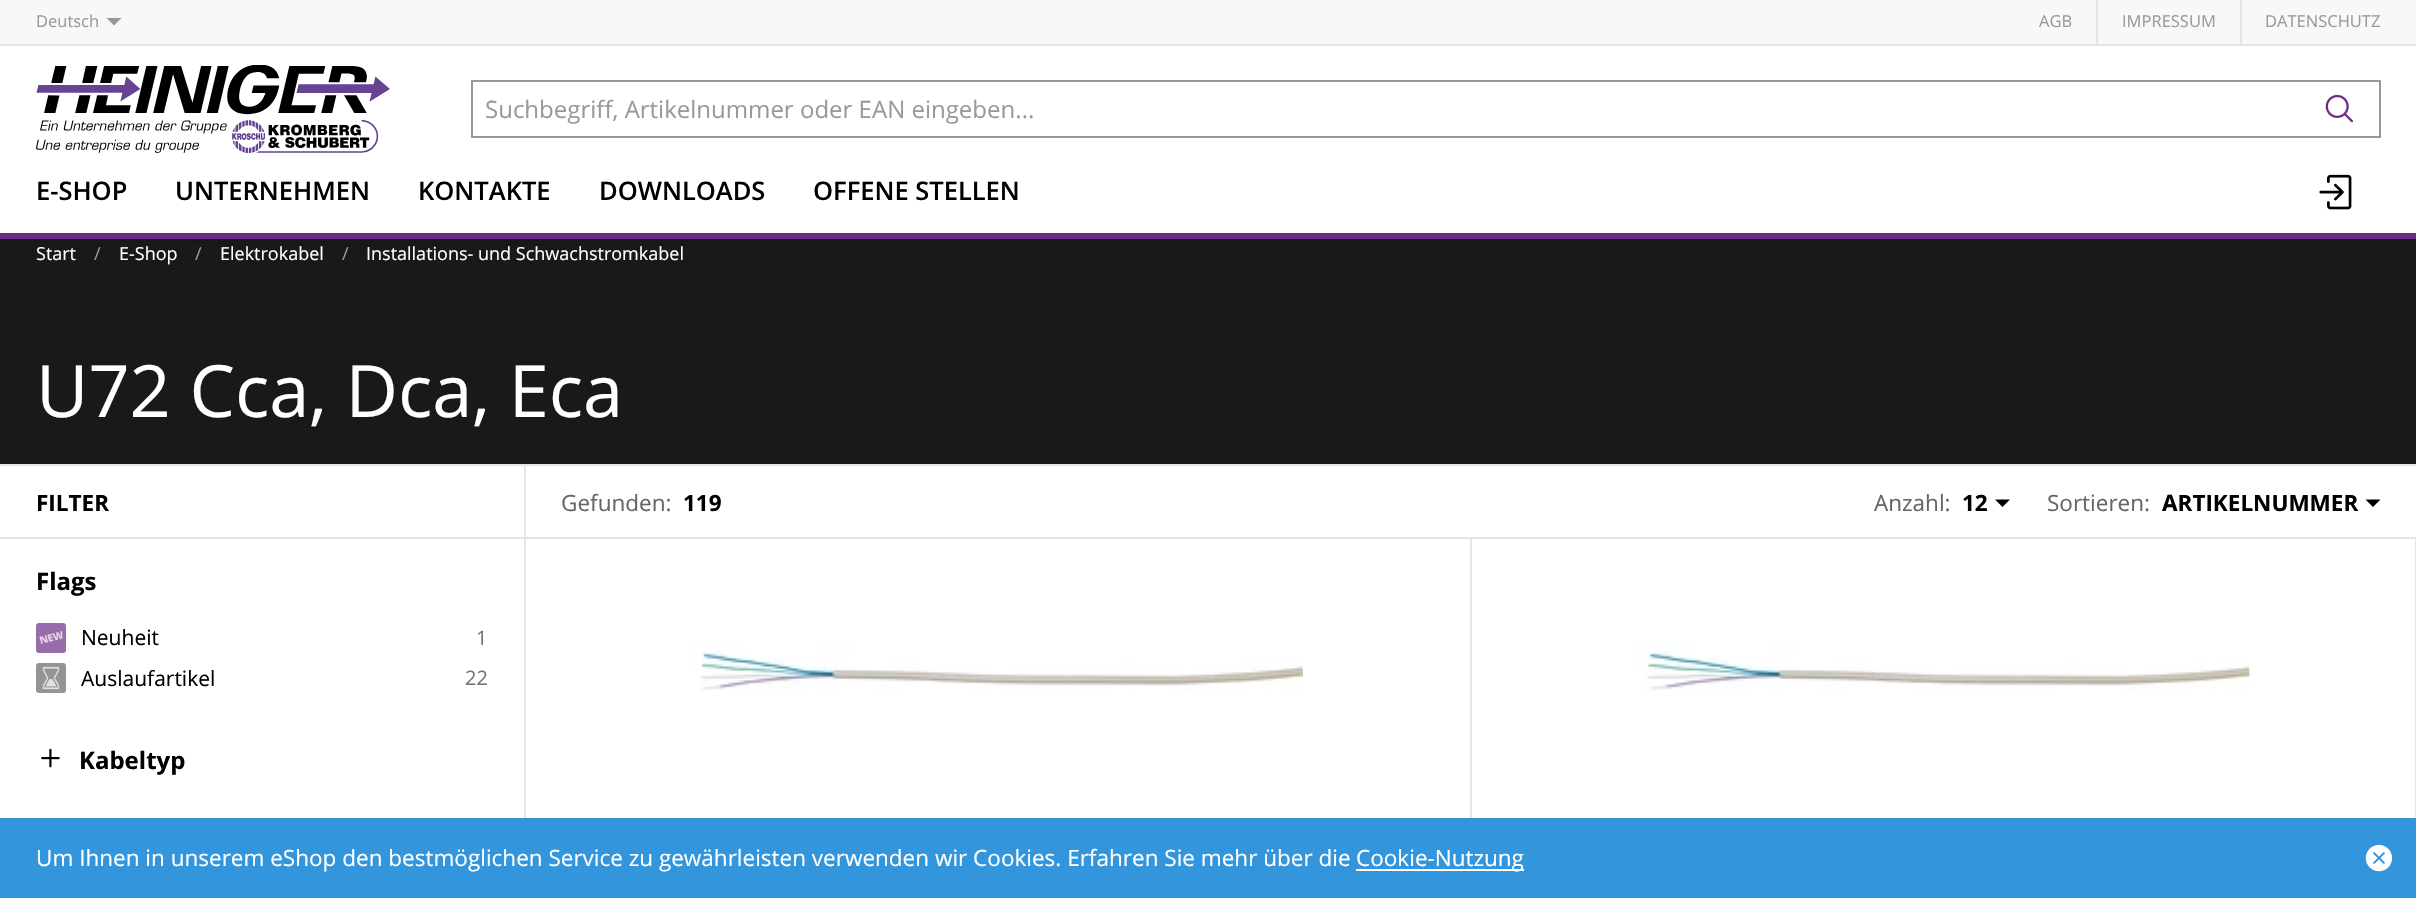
void draw(SkCanvas* canvas) {
    SkPaint paint;
    paint.setAntiAlias(true);
    canvas->clear(0xFFFFFFFF);
    paint.setColor(0xFF191919);
    canvas->drawRect(SkRect::MakeXYWH(0, 239, 2416, 225), paint);
    paint.setColor(0x1A010202);
    paint.setMaskFilter(SkMaskFilter::MakeBlur(kNormal_SkBlurStyle, 4.5f));
    canvas->drawRect(SkRect::MakeXYWH(0, 3, 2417, 239), paint);
    paint.setMaskFilter(nullptr);
    paint.setColor(0xFFFFFFFF);
    canvas->drawRect(SkRect::MakeXYWH(0, 46, 2416, 187), paint);
    paint.setColor(0xFF6C2D85);
    canvas->drawRect(SkRect::MakeXYWH(0, 233, 2416, 6), paint);
    paint.setColor(0xFFF8F8F8);
    canvas->drawRect(SkRect::MakeXYWH(0, 0, 2416, 44), paint);
    paint.setColor(0xFFE5E5E5);
    canvas->drawRect(SkRect::MakeXYWH(0, 44, 2416, 2), paint);
    SkFont font1(fontMgr->matchFamilyStyle("Open Sans", SkFontStyle::Normal()), 16.5f);
    font1.setSubpixel(true);
    paint.setColor(0xFF999999);
    canvas->drawString("Deutsch", 36, 27, font1, paint);
    canvas->drawPath(SkPathBuilder().moveTo(106.5f, 18).lineTo(121.5f, 18).lineTo(114, 25.5f).close().detach(), paint);
    paint.setColor(0xFFE5E5E5);
    canvas->drawRect(SkRect::MakeXYWH(2096, 0, 2, 44), paint);
    paint.setColor(0xFF999999);
    canvas->drawString("AGB", 2039, 27, font1, paint);
    paint.setColor(0xFFE5E5E5);
    canvas->drawRect(SkRect::MakeXYWH(2240, 0, 2, 44), paint);
    paint.setColor(0xFF999999);
    canvas->drawString("IMPRESSUM", 2122, 27, font1, paint);
    canvas->drawString("DATENSCHUTZ", 2265, 27, font1, paint);
    canvas->drawImageRect(SkImages::DeferredFromEncodedData(SkData::MakeFromFileName("img1.png")), SkRect::MakeXYWH(36, 65, 354, 88), SkSamplingOptions());
    paint.setStyle(SkPaint::kStroke_Style);
    paint.setStrokeWidth(2);
    canvas->drawRect(SkRect::MakeXYWH(472, 81, 1908, 56), paint);
    SkFont font2(fontMgr->matchFamilyStyle("Open Sans", SkFontStyle::Normal()), 24);
    font2.setSubpixel(true);
    paint.setStyle(SkPaint::kFill_Style);
    canvas->drawString("Suchbegriff, Artikelnummer oder EAN eingeben...", 485, 118, font2, paint);
    canvas->drawImageRect(SkImages::DeferredFromEncodedData(SkData::MakeFromFileName("img2.png")), SkRect::MakeXYWH(2325, 94, 29, 29), SkSamplingOptions());
    SkFont font3(fontMgr->matchFamilyStyle("Open Sans", SkFontStyle(600, SkFontStyle::kNormal_Width, SkFontStyle::kUpright_Slant)), 25.5f);
    font3.setSubpixel(true);
    paint.setColor(0xFF000000);
    canvas->drawString("E-SHOP", 36, 200, font3, paint);
    canvas->drawString("UNTERNEHMEN", 175, 200, font3, paint);
    canvas->drawString("KONTAKTE", 418, 200, font3, paint);
    canvas->drawString("DOWNLOADS", 599, 200, font3, paint);
    canvas->drawString("OFFENE STELLEN", 813, 200, font3, paint);
    canvas->drawImageRect(SkImages::DeferredFromEncodedData(SkData::MakeFromFileName("img3.png")), SkRect::MakeXYWH(2319, 174, 33, 36), SkSamplingOptions());
    SkFont font4(fontMgr->matchFamilyStyle("Open Sans", SkFontStyle::Normal()), 18);
    font4.setSubpixel(true);
    paint.setColor(0xFFFFFFFF);
    canvas->drawString("Start", 36, 260, font4, paint);
    paint.setColor(0xFF999999);
    canvas->drawString("/", 94, 260, font4, paint);
    paint.setColor(0xFFFFFFFF);
    canvas->drawString("E-Shop", 119, 260, font4, paint);
    paint.setColor(0xFF999999);
    canvas->drawString("/", 195, 260, font4, paint);
    paint.setColor(0xFFFFFFFF);
    canvas->drawString("Elektrokabel", 220, 260, font4, paint);
    paint.setColor(0xFF999999);
    canvas->drawString("/", 342, 260, font4, paint);
    paint.setColor(0xFFFFFFFF);
    canvas->drawString("Installations- und Schwachstromkabel", 366, 260, font4, paint);
    SkFont font5(fontMgr->matchFamilyStyle("Open Sans", SkFontStyle::Normal()), 72);
    font5.setSubpixel(true);
    canvas->drawString("U72 Cca, Dca, Eca", 36, 417, font5, paint);
    paint.setColor(0xFFE5E5E5);
    canvas->drawRect(SkRect::MakeXYWH(0, 464, 2416, 2), paint);
    canvas->drawRect(SkRect::MakeXYWH(0, 537, 2416, 2), paint);
    canvas->drawRect(SkRect::MakeXYWH(524, 539, 2, 279), paint);
    canvas->drawRect(SkRect::MakeXYWH(524, 465, 2, 75), paint);
    SkFont font6(fontMgr->matchFamilyStyle("Open Sans", SkFontStyle::Bold()), 22.5f);
    font6.setSubpixel(true);
    paint.setColor(0xFF000000);
    canvas->drawString("FILTER", 36, 511, font6, paint);
    SkFont font7(fontMgr->matchFamilyStyle("Open Sans", SkFontStyle::Normal()), 22.5f);
    font7.setSubpixel(true);
    paint.setColor(0xFF666666);
    canvas->drawString("Gefunden:", 561, 511, font7, paint);
    paint.setColor(0xFF000000);
    canvas->drawString("119", 683, 511, font6, paint);
    paint.setColor(0xFF666666);
    canvas->drawString("Anzahl:", 1874, 511, font7, paint);
    paint.setColor(0xFF000000);
    canvas->drawString("12", 1962, 511, font6, paint);
    canvas->drawPath(SkPathBuilder().moveTo(1995, 499.5f).lineTo(2010, 499.5f).lineTo(2002.5f, 507).close().detach(), paint);
    paint.setColor(0xFF666666);
    canvas->drawString("Sortieren:", 2047, 511, font7, paint);
    paint.setColor(0xFF000000);
    canvas->drawString("ARTIKELNUMMER", 2162, 511, font6, paint);
    canvas->drawPath(SkPathBuilder().moveTo(2365.5f, 499.5f).lineTo(2380.5f, 499.5f).lineTo(2373, 507).close().detach(), paint);
    SkFont font8(fontMgr->matchFamilyStyle("Open Sans", SkFontStyle::Bold()), 24);
    font8.setSubpixel(true);
    canvas->drawString("Flags", 36, 590, font8, paint);
    paint.setColor(0xFF986CAA);
    canvas->drawRoundRect(SkRect::MakeXYWH(36, 623, 30, 30), 3, 3, paint);
    canvas->drawImageRect(SkImages::DeferredFromEncodedData(SkData::MakeFromFileName("img4.png")), SkRect::MakeXYWH(39, 631, 24, 13), SkSamplingOptions());
    SkFont font9(fontMgr->matchFamilyStyle("Open Sans", SkFontStyle::Normal()), 21);
    font9.setSubpixel(true);
    paint.setColor(0xFF000000);
    canvas->drawString("Neuheit", 81, 645, font9, paint);
    SkFont font10(fontMgr->matchFamilyStyle("Open Sans", SkFontStyle::Normal()), 20);
    font10.setSubpixel(true);
    paint.setColor(0xFF737373);
    canvas->drawString("1", 476, 645, font10, paint);
    paint.setColor(0xFF949494);
    canvas->drawRoundRect(SkRect::MakeXYWH(36, 663, 30, 30), 3, 3, paint);
    canvas->drawImageRect(SkImages::DeferredFromEncodedData(SkData::MakeFromFileName("img5.png")), SkRect::MakeXYWH(42, 666, 18, 24), SkSamplingOptions());
    paint.setColor(0xFF000000);
    canvas->drawString("Auslaufartikel", 81, 686, font9, paint);
    paint.setColor(0xFF737373);
    canvas->drawString("22", 465, 685, font10, paint);
    canvas->drawImageRect(SkImages::DeferredFromEncodedData(SkData::MakeFromFileName("img6.png")), SkRect::MakeXYWH(41, 748, 19, 20), SkSamplingOptions());
    paint.setColor(0xFF000000);
    canvas->drawString("Kabeltyp", 79, 769, font8, paint);
    paint.setColor(0xFFE5E5E5);
    canvas->drawRect(SkRect::MakeXYWH(1470, 539, 2, 279), paint);
    canvas->drawImageRect(SkImages::DeferredFromEncodedData(SkData::MakeFromFileName("img7.png")), SkRect::MakeXYWH(692, 642, 611, 49), SkSamplingOptions());
    canvas->drawRect(SkRect::MakeXYWH(2415, 539, 1, 279), paint);
    canvas->drawImageRect(SkImages::DeferredFromEncodedData(SkData::MakeFromFileName("img8.png")), SkRect::MakeXYWH(1638, 642, 612, 49), SkSamplingOptions());
    paint.setColor(0xFF3396DC);
    canvas->drawRect(SkRect::MakeXYWH(0, 818, 2416, 80), paint);
    paint.setColor(0xFFFFFFFF);
    canvas->drawString("Um Ihnen in unserem eShop den bestmöglichen Service zu gewährleisten verwenden wir Cookies. Erfahren Sie mehr über die", 36, 866, font7, paint);
    canvas->drawRect(SkRect::MakeXYWH(1356, 869, 168, 2), paint);
    canvas->drawString("Cookie-Nutzung", 1356, 866, font7, paint);
    canvas->drawImageRect(SkImages::DeferredFromEncodedData(SkData::MakeFromFileName("img9.png")), SkRect::MakeXYWH(2365, 844, 28, 28), SkSamplingOptions());
}
